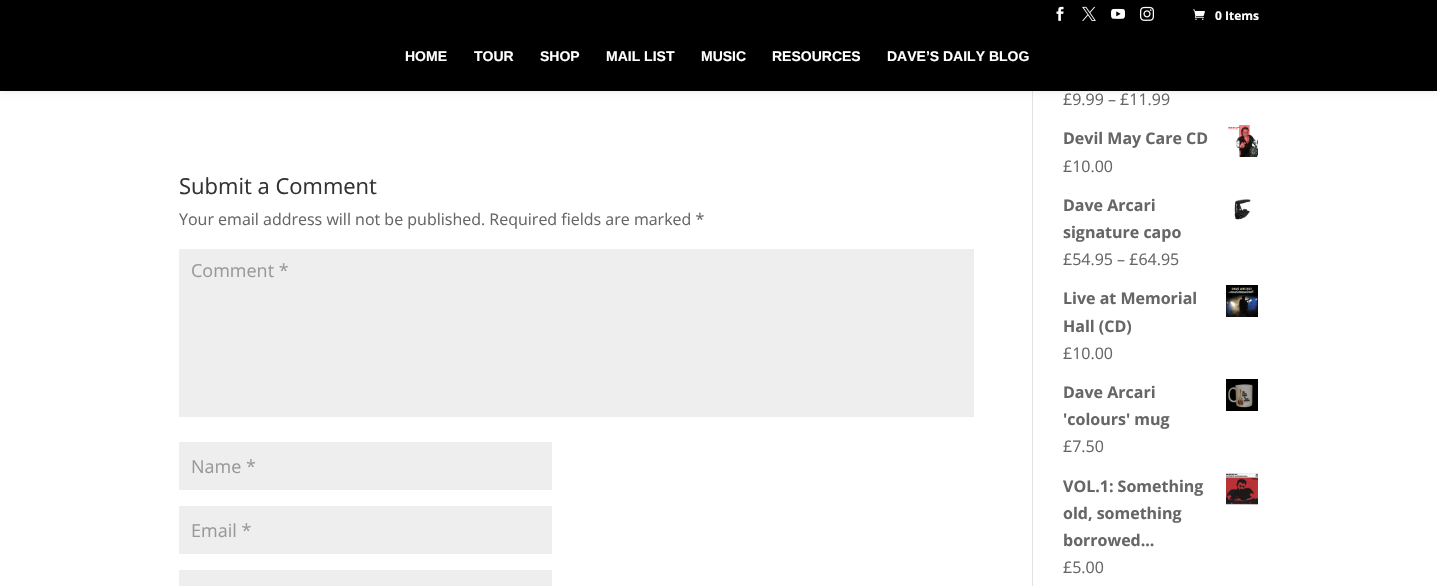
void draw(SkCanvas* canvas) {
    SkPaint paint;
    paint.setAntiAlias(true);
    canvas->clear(0xFFFFFFFF);
    paint.setColor(0xFFE2E2E2);
    canvas->drawRect(SkRect::MakeXYWH(1032, 91, 1, 495), paint);
    paint.setColor(0x1A000000);
    paint.setMaskFilter(SkMaskFilter::MakeBlur(kNormal_SkBlurStyle, 3.5f));
    canvas->drawRect(SkRect::MakeXYWH(0, 33, 1437, 58), paint);
    paint.setMaskFilter(nullptr);
    paint.setColor(0xFF000000);
    canvas->drawRect(SkRect::MakeXYWH(0, 0, 1437, 91), paint);
    canvas->drawImageRect(SkImages::DeferredFromEncodedData(SkData::MakeFromFileName("img1.png")), SkRect::MakeXYWH(1056, 6, 8, 15), SkSamplingOptions());
    canvas->drawImageRect(SkImages::DeferredFromEncodedData(SkData::MakeFromFileName("img2.png")), SkRect::MakeXYWH(1082, 6, 14, 15), SkSamplingOptions());
    canvas->drawImageRect(SkImages::DeferredFromEncodedData(SkData::MakeFromFileName("img3.png")), SkRect::MakeXYWH(1111, 8, 14, 11), SkSamplingOptions());
    canvas->drawImageRect(SkImages::DeferredFromEncodedData(SkData::MakeFromFileName("img4.png")), SkRect::MakeXYWH(1140, 6, 14, 15), SkSamplingOptions());
    canvas->drawImageRect(SkImages::DeferredFromEncodedData(SkData::MakeFromFileName("img5.png")), SkRect::MakeXYWH(1193, 9, 12, 11), SkSamplingOptions());
    SkFont font1(fontMgr->matchFamilyStyle("Open Sans", SkFontStyle::Bold()), 12);
    font1.setSubpixel(true);
    paint.setColor(0xFFFFFFFF);
    canvas->drawString("0 Items", 1215, 20, font1, paint);
    SkFont font2(fontMgr->matchFamilyStyle("Liberation Sans", SkFontStyle::Bold()), 14);
    font2.setSubpixel(true);
    canvas->drawString("HOME", 405, 61, font2, paint);
    canvas->drawString("TOUR", 474, 61, font2, paint);
    canvas->drawString("SHOP", 540, 61, font2, paint);
    canvas->drawString("MAIL LIST", 606, 61, font2, paint);
    canvas->drawString("MUSIC", 701, 61, font2, paint);
    canvas->drawString("RESOURCES", 772, 61, font2, paint);
    canvas->drawString("DAVE’S DAILY BLOG", 887, 61, font2, paint);
    SkFont font3(fontMgr->matchFamilyStyle("Open Sans", SkFontStyle::Normal()), 22);
    font3.setSubpixel(true);
    paint.setColor(0xFF333333);
    canvas->drawString("Submit a Comment", 179, 194, font3, paint);
    SkFont font4(fontMgr->matchFamilyStyle("Open Sans", SkFontStyle::Normal()), 16);
    font4.setSubpixel(true);
    paint.setColor(0xFF666666);
    canvas->drawString("Your email address will not be published. Required fields are marked *", 179, 225, font4, paint);
    paint.setColor(0xFFEEEEEE);
    canvas->drawRect(SkRect::MakeXYWH(179, 249, 795, 168), paint);
    SkFont font5(fontMgr->matchFamilyStyle("Open Sans", SkFontStyle::Normal()), 18);
    font5.setSubpixel(true);
    paint.setColor(0xFF999999);
    canvas->drawString("Comment *", 191, 277, font5, paint);
    paint.setColor(0xFFEEEEEE);
    canvas->drawRect(SkRect::MakeXYWH(179, 442, 373, 48), paint);
    paint.setColor(0xFF999999);
    canvas->drawString("Name *", 191, 473, font5, paint);
    paint.setColor(0xFFEEEEEE);
    canvas->drawRect(SkRect::MakeXYWH(179, 506, 373, 48), paint);
    paint.setColor(0xFF999999);
    canvas->drawString("Email *", 191, 537, font5, paint);
    paint.setColor(0xFFEEEEEE);
    canvas->drawRect(SkRect::MakeXYWH(179, 570, 373, 16), paint);
    paint.setColor(0xFF666666);
    canvas->drawString("£9.99 – £11.99", 1063, 105, font4, paint);
    SkFont font6(fontMgr->matchFamilyStyle("Open Sans", SkFontStyle::Bold()), 16);
    font6.setSubpixel(true);
    canvas->drawString("Devil May Care CD", 1063, 144, font6, paint);
    canvas->drawImageRect(SkImages::DeferredFromEncodedData(SkData::MakeFromFileName("img6.png")), SkRect::MakeXYWH(1228, 125, 30, 32), SkSamplingOptions());
    canvas->drawString("£10.00", 1063, 172, font4, paint);
    canvas->drawString("Dave Arcari", 1063, 211, font6, paint);
    canvas->drawImageRect(SkImages::DeferredFromEncodedData(SkData::MakeFromFileName("img7.png")), SkRect::MakeXYWH(1234, 199, 17, 21), SkSamplingOptions());
    canvas->drawString("signature capo", 1063, 238, font6, paint);
    canvas->drawString("£54.95 – £64.95", 1063, 265, font4, paint);
    canvas->drawString("Live at Memorial", 1063, 304, font6, paint);
    canvas->drawImageRect(SkImages::DeferredFromEncodedData(SkData::MakeFromFileName("img8.png")), SkRect::MakeXYWH(1226, 285, 32, 32), SkSamplingOptions());
    canvas->drawString("Hall (CD)", 1063, 332, font6, paint);
    canvas->drawString("£10.00", 1063, 359, font4, paint);
    canvas->drawString("Dave Arcari", 1063, 398, font6, paint);
    canvas->drawImageRect(SkImages::DeferredFromEncodedData(SkData::MakeFromFileName("img9.png")), SkRect::MakeXYWH(1226, 379, 32, 32), SkSamplingOptions());
    canvas->drawString("'colours' mug", 1063, 425, font6, paint);
    canvas->drawString("£7.50", 1063, 452, font4, paint);
    canvas->drawString("VOL.1: Something", 1063, 492, font6, paint);
    canvas->drawImageRect(SkImages::DeferredFromEncodedData(SkData::MakeFromFileName("img10.png")), SkRect::MakeXYWH(1226, 473, 32, 32), SkSamplingOptions());
    canvas->drawString("old, something", 1063, 519, font6, paint);
    canvas->drawString("borrowed...", 1063, 546, font6, paint);
    canvas->drawString("£5.00", 1063, 573, font4, paint);
}
